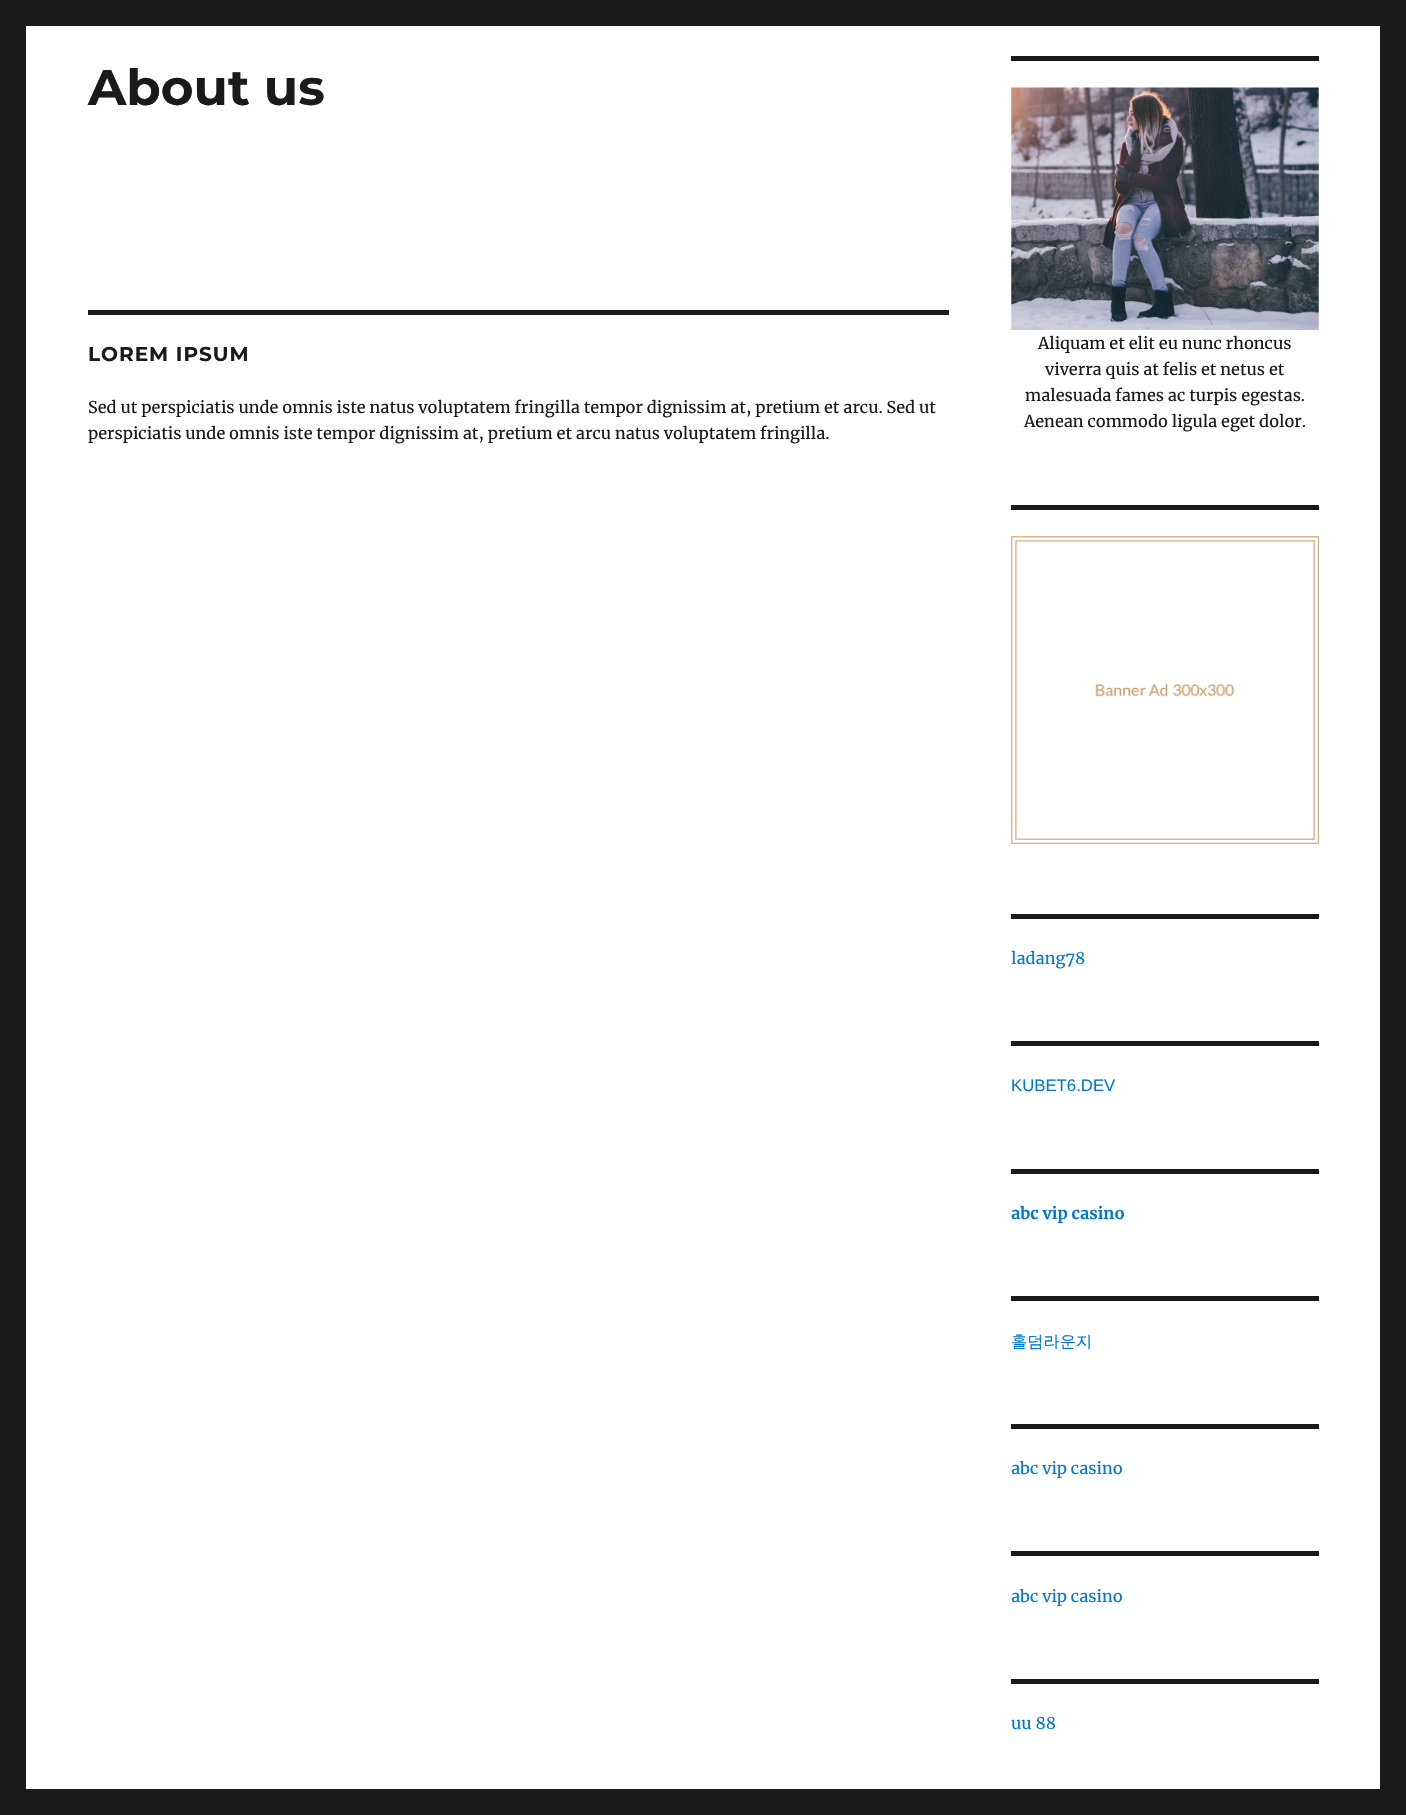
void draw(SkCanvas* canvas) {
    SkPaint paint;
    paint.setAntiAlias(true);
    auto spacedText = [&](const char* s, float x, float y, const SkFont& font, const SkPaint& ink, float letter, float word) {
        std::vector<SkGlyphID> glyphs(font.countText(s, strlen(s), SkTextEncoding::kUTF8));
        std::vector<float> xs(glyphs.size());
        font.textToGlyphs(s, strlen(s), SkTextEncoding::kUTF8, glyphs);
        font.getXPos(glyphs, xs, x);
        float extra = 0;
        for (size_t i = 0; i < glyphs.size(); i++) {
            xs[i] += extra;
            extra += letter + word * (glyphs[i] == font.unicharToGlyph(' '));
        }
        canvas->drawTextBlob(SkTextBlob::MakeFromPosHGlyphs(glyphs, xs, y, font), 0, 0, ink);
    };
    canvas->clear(0xFF1A1A1A);
    paint.setColor(0xFFFFFFFF);
    canvas->drawRect(SkRect::MakeXYWH(26, 26, 1354, 1763), paint);
    SkFont font1(fontMgr->matchFamilyStyle("Montserrat", SkFontStyle(100, SkFontStyle::kNormal_Width, SkFontStyle::kUpright_Slant)), 50);
    font1.setSubpixel(true);
    paint.setColor(0xFF1A1A1A);
    canvas->drawString("About us", 88, 105, font1, paint);
    canvas->drawRect(SkRect::MakeXYWH(88, 310, 861, 5), paint);
    SkFont font2(fontMgr->matchFamilyStyle("Montserrat", SkFontStyle(100, SkFontStyle::kNormal_Width, SkFontStyle::kUpright_Slant)), 20);
    font2.setSubpixel(true);
    spacedText("LOREM IPSUM", 88, 361, font2, paint, 1, 0);
    SkFont font3(fontMgr->matchFamilyStyle("Merriweather", SkFontStyle::Normal()), 16.25f);
    font3.setSubpixel(true);
    canvas->drawString("Sed ut perspiciatis unde omnis iste natus voluptatem fringilla tempor dignissim at, pretium et arcu. Sed ut", 88, 413, font3, paint);
    canvas->drawString("perspiciatis unde omnis iste tempor dignissim at, pretium et arcu natus voluptatem fringilla.", 88, 439, font3, paint);
    canvas->drawRect(SkRect::MakeXYWH(1011, 56, 308, 5), paint);
    canvas->drawImageRect(SkImages::DeferredFromEncodedData(SkData::MakeFromFileName("img1.png")), SkRect::MakeXYWH(1011, 87, 308, 243), SkSamplingOptions());
    canvas->drawString("Aliquam et elit eu nunc rhoncus", 1038, 349, font3, paint);
    canvas->drawString("viverra quis at felis et netus et", 1045, 375, font3, paint);
    canvas->drawString("malesuada fames ac turpis egestas.", 1025, 401, font3, paint);
    canvas->drawString("Aenean commodo ligula eget dolor.", 1024, 427, font3, paint);
    canvas->drawRect(SkRect::MakeXYWH(1011, 505, 308, 5), paint);
    canvas->drawImageRect(SkImages::DeferredFromEncodedData(SkData::MakeFromFileName("img2.png")), SkRect::MakeXYWH(1011, 536, 308, 308), SkSamplingOptions());
    canvas->drawRect(SkRect::MakeXYWH(1011, 914, 308, 5), paint);
    paint.setColor(0xFF007ACC);
    canvas->drawString("ladang78", 1011, 964, font3, paint);
    paint.setColor(0xFF1A1A1A);
    canvas->drawRect(SkRect::MakeXYWH(1011, 1041, 308, 5), paint);
    SkFont font4(fontMgr->matchFamilyStyle("Liberation Sans", SkFontStyle::Normal()), 16.75f);
    font4.setSubpixel(true);
    paint.setColor(0xFF007ACC);
    canvas->drawString("KUBET6.DEV", 1011, 1091, font4, paint);
    paint.setColor(0xFF1A1A1A);
    canvas->drawRect(SkRect::MakeXYWH(1011, 1169, 308, 5), paint);
    SkFont font5(fontMgr->matchFamilyStyle("Merriweather", SkFontStyle::Bold()), 16.25f);
    font5.setSubpixel(true);
    paint.setColor(0xFF007ACC);
    canvas->drawString("abc vip casino", 1011, 1219, font5, paint);
    paint.setColor(0xFF1A1A1A);
    canvas->drawRect(SkRect::MakeXYWH(1011, 1296, 308, 5), paint);
    SkFont font6(fontMgr->matchFamilyStyle("WenQuanYi Zen Hei", SkFontStyle(500, SkFontStyle::kNormal_Width, SkFontStyle::kUpright_Slant)), 16.25f);
    font6.setSubpixel(true);
    paint.setColor(0xFF007ACC);
    canvas->drawString("홀덤라운지", 1011, 1347, font6, paint);
    paint.setColor(0xFF1A1A1A);
    canvas->drawRect(SkRect::MakeXYWH(1011, 1424, 308, 5), paint);
    paint.setColor(0xFF007ACC);
    canvas->drawString("abc vip casino", 1011, 1474, font3, paint);
    paint.setColor(0xFF1A1A1A);
    canvas->drawRect(SkRect::MakeXYWH(1011, 1551, 308, 5), paint);
    paint.setColor(0xFF007ACC);
    canvas->drawString("abc vip casino", 1011, 1602, font3, paint);
    paint.setColor(0xFF1A1A1A);
    canvas->drawRect(SkRect::MakeXYWH(1011, 1679, 308, 5), paint);
    paint.setColor(0xFF007ACC);
    canvas->drawString("uu 88", 1011, 1729, font3, paint);
}
